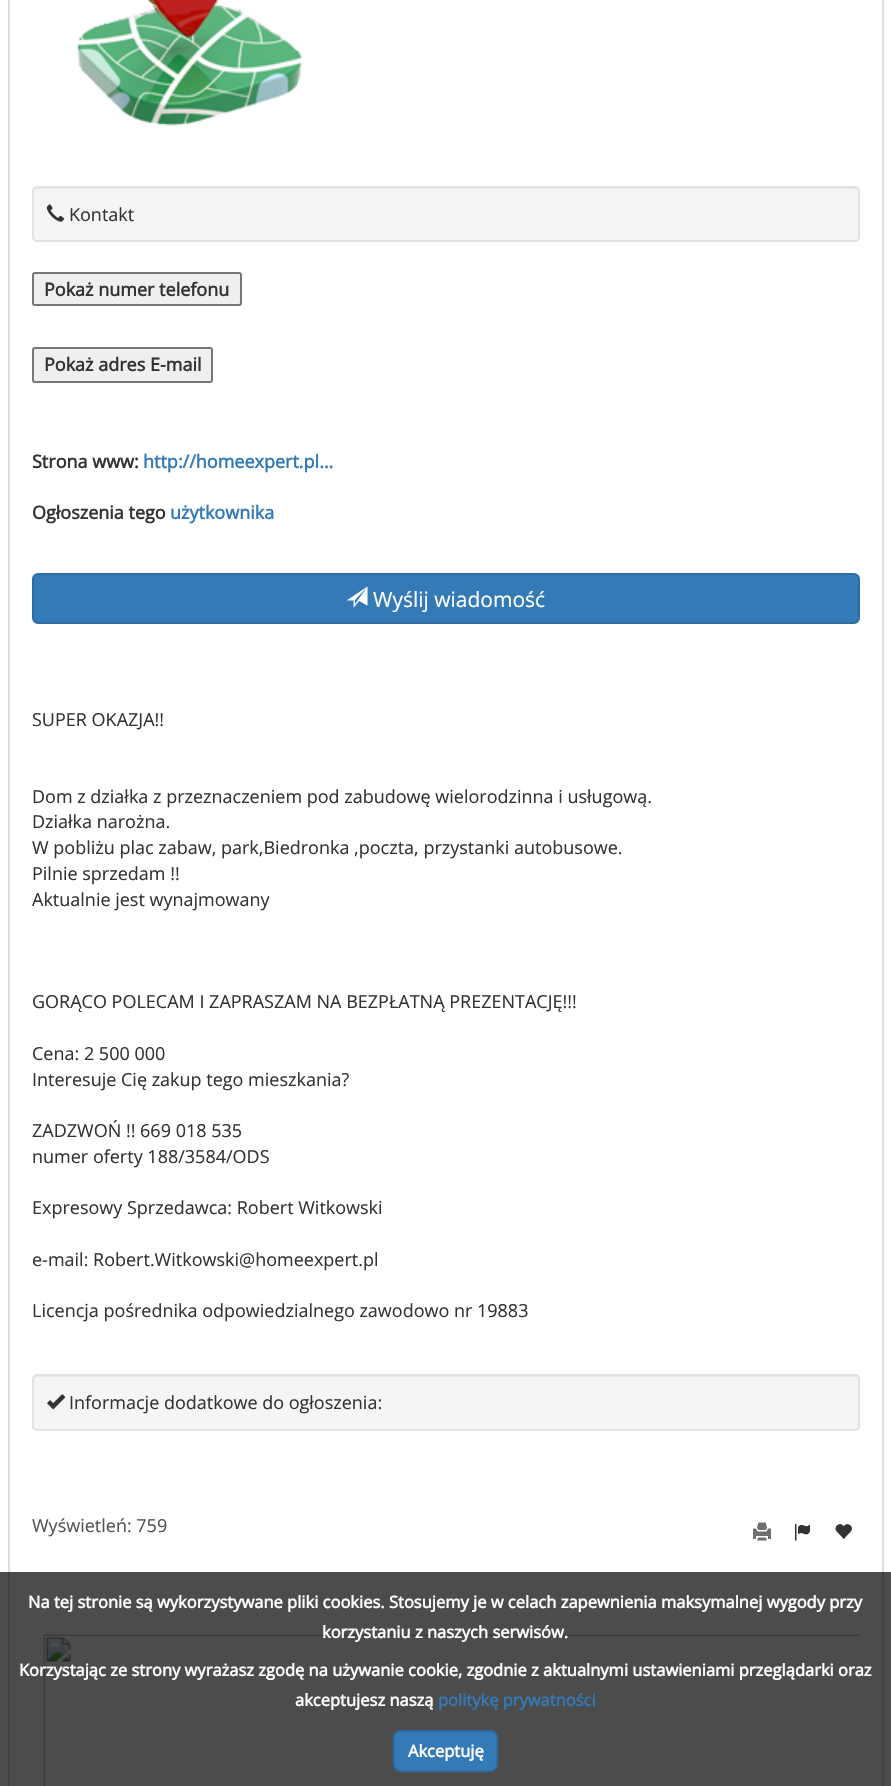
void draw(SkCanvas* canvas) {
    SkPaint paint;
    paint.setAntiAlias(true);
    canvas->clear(0xFFFFFFFF);
    paint.setStyle(SkPaint::kStroke_Style);
    paint.setStrokeWidth(2);
    paint.setColor(0xFFDDDDDD);
    canvas->drawRect(SkRect::MakeXYWH(9, -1, 874, 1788), paint);
    canvas->drawImageRect(SkImages::DeferredFromEncodedData(SkData::MakeFromFileName("img1.png")), SkRect::MakeXYWH(77, 0, 225, 126), SkSamplingOptions());
    paint.setStyle(SkPaint::kFill_Style);
    paint.setColor(0xFFF5F5F5);
    canvas->drawRoundRect(SkRect::MakeXYWH(32, 186, 828, 56), 5, 5, paint);
    paint.setColor(0xFFE9E9E9);
    canvas->drawPath(SkPathBuilder().moveTo(36, 189).lineTo(855, 189).cubicTo(857, 189, 858, 190, 858, 192).cubicTo(858, 190, 857, 188, 855, 188).lineTo(36, 188).cubicTo(34, 188, 33, 190, 33, 192).cubicTo(33, 190, 34, 189, 36, 189).close().detach(), paint);
    paint.setStyle(SkPaint::kStroke_Style);
    paint.setColor(0xFFE3E3E3);
    canvas->drawRoundRect(SkRect::MakeXYWH(33, 187, 826, 54), 4, 4, paint);
    canvas->drawImageRect(SkImages::DeferredFromEncodedData(SkData::MakeFromFileName("img2.png")), SkRect::MakeXYWH(46, 204, 19, 18), SkSamplingOptions());
    SkFont font1(fontMgr->matchFamilyStyle("Open Sans", SkFontStyle::Normal()), 18);
    font1.setSubpixel(true);
    paint.setStyle(SkPaint::kFill_Style);
    paint.setColor(0xFF333333);
    canvas->drawString("Kontakt", 69, 221, font1, paint);
    paint.setColor(0xFFEFEFEF);
    canvas->drawRoundRect(SkRect::MakeXYWH(33, 273, 208, 32), 2, 2, paint);
    paint.setStyle(SkPaint::kStroke_Style);
    paint.setColor(0xFF767676);
    canvas->drawRoundRect(SkRect::MakeXYWH(33, 273, 208, 32), 2, 2, paint);
    SkFont font2(fontMgr->matchFamilyStyle("Open Sans", SkFontStyle::Bold()), 18);
    font2.setSubpixel(true);
    paint.setStyle(SkPaint::kFill_Style);
    paint.setColor(0xFF333333);
    canvas->drawString("Pokaż numer telefonu", 44, 296, font2, paint);
    paint.setColor(0xFFEFEFEF);
    canvas->drawRoundRect(SkRect::MakeXYWH(33, 348, 179, 34), 2, 2, paint);
    paint.setStyle(SkPaint::kStroke_Style);
    paint.setColor(0xFF767676);
    canvas->drawRoundRect(SkRect::MakeXYWH(33, 348, 179, 34), 2, 2, paint);
    paint.setStyle(SkPaint::kFill_Style);
    paint.setColor(0xFF333333);
    canvas->drawString("Pokaż adres E-mail", 44, 371, font2, paint);
    canvas->drawString("Strona www:", 32, 468, font2, paint);
    paint.setColor(0xFF337AB7);
    canvas->drawString("http://homeexpert.pl...", 143, 468, font2, paint);
    paint.setColor(0xFF333333);
    canvas->drawString("Ogłoszenia tego", 32, 519, font2, paint);
    paint.setColor(0xFF337AB7);
    canvas->drawString("użytkownika", 170, 519, font2, paint);
    canvas->drawRoundRect(SkRect::MakeXYWH(33, 574, 826, 49), 5, 5, paint);
    paint.setStyle(SkPaint::kStroke_Style);
    paint.setColor(0xFF2E6DA4);
    canvas->drawRoundRect(SkRect::MakeXYWH(33, 574, 826, 49), 5, 5, paint);
    canvas->drawImageRect(SkImages::DeferredFromEncodedData(SkData::MakeFromFileName("img3.png")), SkRect::MakeXYWH(346, 586, 22, 22), SkSamplingOptions());
    SkFont font3(fontMgr->matchFamilyStyle("Open Sans", SkFontStyle::Normal()), 21);
    font3.setSubpixel(true);
    paint.setStyle(SkPaint::kFill_Style);
    paint.setColor(0xFFFFFFFF);
    canvas->drawString("Wyślij wiadomość", 373, 607, font3, paint);
    paint.setColor(0xFF333333);
    canvas->drawString("SUPER OKAZJA!!", 32, 726, font1, paint);
    canvas->drawString("Dom z działka z przeznaczeniem pod zabudowę wielorodzinna i usługową.", 32, 803, font1, paint);
    canvas->drawString("Działka narożna.", 32, 828, font1, paint);
    canvas->drawString("W pobliżu plac zabaw, park,Biedronka ,poczta, przystanki autobusowe.", 32, 854, font1, paint);
    canvas->drawString("Pilnie sprzedam !!", 32, 880, font1, paint);
    canvas->drawString("Aktualnie jest wynajmowany", 32, 906, font1, paint);
    canvas->drawString("GORĄCO POLECAM I ZAPRASZAM NA BEZPŁATNĄ PREZENTACJĘ!!!", 32, 1008, font1, paint);
    canvas->drawString("Cena: 2 500 000", 32, 1060, font1, paint);
    canvas->drawString("Interesuje Cię zakup tego mieszkania?", 32, 1086, font1, paint);
    canvas->drawString("ZADZWOŃ !! 669 018 535", 32, 1137, font1, paint);
    canvas->drawString("numer oferty 188/3584/ODS", 32, 1163, font1, paint);
    canvas->drawString("Expresowy Sprzedawca: Robert Witkowski", 32, 1214, font1, paint);
    canvas->drawString("e-mail: Robert.Witkowski@homeexpert.pl", 32, 1266, font1, paint);
    canvas->drawString("Licencja pośrednika odpowiedzialnego zawodowo nr 19883", 32, 1317, font1, paint);
    paint.setColor(0xFFF5F5F5);
    canvas->drawRoundRect(SkRect::MakeXYWH(32, 1374, 828, 57), 5, 5, paint);
    paint.setColor(0xFFE9E9E9);
    canvas->drawPath(SkPathBuilder().moveTo(36, 1377).lineTo(855, 1377).cubicTo(857, 1377, 858, 1378, 858, 1380).cubicTo(858, 1378, 857, 1376, 855, 1376).lineTo(36, 1376).cubicTo(34, 1376, 33, 1378, 33, 1380).cubicTo(33, 1378, 34, 1377, 36, 1377).close().detach(), paint);
    paint.setStyle(SkPaint::kStroke_Style);
    paint.setColor(0xFFE3E3E3);
    canvas->drawRoundRect(SkRect::MakeXYWH(33, 1375, 826, 55), 4, 4, paint);
    canvas->drawImageRect(SkImages::DeferredFromEncodedData(SkData::MakeFromFileName("img4.png")), SkRect::MakeXYWH(47, 1394, 19, 16), SkSamplingOptions());
    paint.setStyle(SkPaint::kFill_Style);
    paint.setColor(0xFF333333);
    canvas->drawString("Informacje dodatkowe do ogłoszenia:", 69, 1409, font1, paint);
    paint.setColor(0xFF525252);
    canvas->drawString("Wyświetleń: 759", 32, 1532, font1, paint);
    canvas->drawImageRect(SkImages::DeferredFromEncodedData(SkData::MakeFromFileName("img5.png")), SkRect::MakeXYWH(753, 1522, 18, 19), SkSamplingOptions());
    canvas->drawImageRect(SkImages::DeferredFromEncodedData(SkData::MakeFromFileName("img6.png")), SkRect::MakeXYWH(795, 1524, 15, 17), SkSamplingOptions());
    canvas->drawImageRect(SkImages::DeferredFromEncodedData(SkData::MakeFromFileName("img7.png")), SkRect::MakeXYWH(835, 1524, 17, 16), SkSamplingOptions());
    canvas->drawImageRect(SkImages::DeferredFromEncodedData(SkData::MakeFromFileName("img8.png")), SkRect::MakeXYWH(43, 1634, 817, 152), SkSamplingOptions());
    paint.setColor(0xB3000000);
    canvas->drawRect(SkRect::MakeXYWH(0, 1572, 891, 214), paint);
    SkFont font4(fontMgr->matchFamilyStyle("Open Sans", SkFontStyle::Bold()), 16.5f);
    font4.setSubpixel(true);
    paint.setColor(0xFFFFFFFF);
    canvas->drawString("Na tej stronie są wykorzystywane pliki cookies. Stosujemy je w celach zapewnienia maksymalnej wygody przy", 28, 1608, font4, paint);
    canvas->drawString("korzystaniu z naszych serwisów.", 322, 1638, font4, paint);
    canvas->drawString("Korzystając ze strony wyrażasz zgodę na używanie cookie, zgodnie z aktualnymi ustawieniami przeglądarki oraz", 19, 1676, font4, paint);
    canvas->drawString("akceptujesz naszą", 295, 1706, font4, paint);
    paint.setColor(0xFF337AB7);
    canvas->drawString("politykę prywatności", 438, 1706, font4, paint);
    canvas->drawRoundRect(SkRect::MakeXYWH(394, 1731, 103, 40), 7, 7, paint);
    paint.setStyle(SkPaint::kStroke_Style);
    paint.setColor(0xFF2E6DA4);
    canvas->drawRoundRect(SkRect::MakeXYWH(394, 1731, 103, 40), 7, 7, paint);
    paint.setStyle(SkPaint::kFill_Style);
    paint.setColor(0xFFFFFFFF);
    canvas->drawString("Akceptuję", 408, 1757, font4, paint);
}
